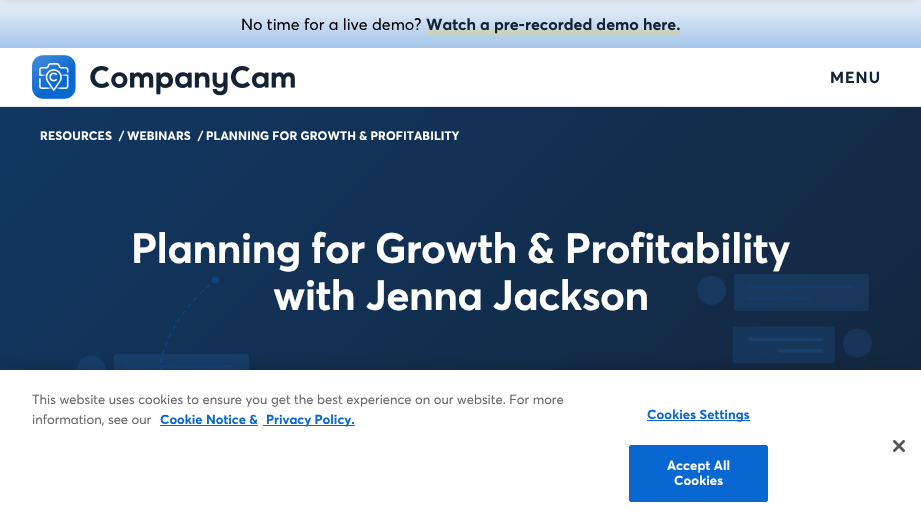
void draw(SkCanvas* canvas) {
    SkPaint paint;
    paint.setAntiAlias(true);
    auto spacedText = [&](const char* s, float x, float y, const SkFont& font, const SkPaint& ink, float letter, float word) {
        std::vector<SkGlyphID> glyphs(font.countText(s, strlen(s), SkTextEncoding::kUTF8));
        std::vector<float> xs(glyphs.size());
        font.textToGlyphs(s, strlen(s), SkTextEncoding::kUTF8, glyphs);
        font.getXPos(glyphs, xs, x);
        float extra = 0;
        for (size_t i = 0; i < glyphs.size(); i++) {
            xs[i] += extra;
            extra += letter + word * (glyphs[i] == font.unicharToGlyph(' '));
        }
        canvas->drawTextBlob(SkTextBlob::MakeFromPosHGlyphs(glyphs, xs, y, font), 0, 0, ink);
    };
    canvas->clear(0xFFFFFFFF);
    {
        const SkColor colors[] = {0xFFE6EFFA, 0xFFA6C4E9};
        const float stops[] = {0.1f, 1};
        const SkPoint ends[] = {{461, 0}, {461, 48}};
        paint.setShader(SkGradientShader::MakeLinear(ends, colors, stops, 2, SkTileMode::kClamp));
        paint.setAlpha(255);
    }
    canvas->drawRect(SkRect::MakeXYWH(0, 0, 921, 48), paint);
    paint.setShader(nullptr);
    paint.setColor(0x1A000000);
    paint.setMaskFilter(SkMaskFilter::MakeBlur(kNormal_SkBlurStyle, 6));
    canvas->drawRect(SkRect::MakeXYWH(0, -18, 921, 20), paint);
    paint.setMaskFilter(nullptr);
    {
        const SkColor colors[] = {0xFFEBE9C8, 0xFFB8C6BA};
        const float stops[] = {0.1f, 1};
        const SkPoint ends[] = {{461, 0}, {461, 48}};
        paint.setShader(SkGradientShader::MakeLinear(ends, colors, stops, 2, SkTileMode::kClamp));
        paint.setAlpha(255);
    }
    canvas->drawRect(SkRect::MakeXYWH(426, 30, 254, 6), paint);
    SkFont font1(fontMgr->matchFamilyStyle("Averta", SkFontStyle::Normal()), 16);
    font1.setSubpixel(true);
    paint.setShader(nullptr);
    paint.setColor(0xFF000000);
    canvas->drawString("No time for a live demo?", 241, 30, font1, paint);
    SkFont font2(fontMgr->matchFamilyStyle("Averta", SkFontStyle::Bold()), 16);
    font2.setSubpixel(true);
    paint.setColor(0xFF142334);
    canvas->drawString("Watch a pre-recorded demo here.", 426, 30, font2, paint);
    paint.setColor(0xFFE7E9EA);
    canvas->drawRect(SkRect::MakeXYWH(0, 106, 921, 1), paint);
    canvas->drawImageRect(SkImages::DeferredFromEncodedData(SkData::MakeFromFileName("img1.png")), SkRect::MakeXYWH(32, 55, 263, 44), SkSamplingOptions());
    paint.setColor(0xFF142334);
    spacedText("MENU", 830, 83, font2, paint, 1, 0);
    {
        const SkColor colors[] = {0xFF113763, 0xFF142334};
        const float stops[] = {0, 1};
        const SkPoint ends[] = {{70, 37}, {851, 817}};
        paint.setShader(SkGradientShader::MakeLinear(ends, colors, stops, 2, SkTileMode::kClamp));
        paint.setAlpha(255);
    }
    canvas->drawRect(SkRect::MakeXYWH(0, 107, 921, 263), paint);
    SkFont font3(fontMgr->matchFamilyStyle("Averta", SkFontStyle::Bold()), 12);
    font3.setSubpixel(true);
    paint.setShader(nullptr);
    paint.setColor(0xFFFFFFFF);
    spacedText("RESOURCES", 40, 140, font3, paint, 0.1f, 0);
    SkFont font4(fontMgr->matchFamilyStyle("Averta", SkFontStyle(600, SkFontStyle::kNormal_Width, SkFontStyle::kUpright_Slant)), 12);
    font4.setSubpixel(true);
    spacedText("/", 119, 140, font4, paint, 0.1f, 0);
    spacedText("WEBINARS", 127, 140, font3, paint, 0.1f, 0);
    spacedText("/", 198, 140, font4, paint, 0.1f, 0);
    spacedText("PLANNING FOR GROWTH & PROFITABILITY", 206, 140, font3, paint, 0.1f, 0);
    SkFont font5(fontMgr->matchFamilyStyle("Averta", SkFontStyle::Bold()), 42);
    font5.setSubpixel(true);
    spacedText("Planning for Growth & Profitability", 131, 263, font5, paint, -0.5f, 0);
    canvas->drawImageRect(SkImages::DeferredFromEncodedData(SkData::MakeFromFileName("img2.png")), SkRect::MakeXYWH(77, 274, 795, 96), SkSamplingOptions());
    spacedText("with Jenna Jackson", 273, 310, font5, paint, -0.5f, 0);
    paint.setColor(0x33000000);
    paint.setMaskFilter(SkMaskFilter::MakeBlur(kNormal_SkBlurStyle, 9));
    canvas->drawRect(SkRect::MakeXYWH(0, 370, 921, 152), paint);
    paint.setMaskFilter(nullptr);
    paint.setColor(0xFFFFFFFF);
    canvas->drawRect(SkRect::MakeXYWH(0, 370, 921, 152), paint);
    SkFont font6(fontMgr->matchFamilyStyle("Averta", SkFontStyle::Normal()), 13);
    font6.setSubpixel(true);
    paint.setColor(0xFF696969);
    canvas->drawString("This website uses cookies to ensure you get the best experience on our website. For more", 32, 404, font6, paint);
    canvas->drawString("information, see our", 32, 424, font6, paint);
    SkFont font7(fontMgr->matchFamilyStyle("Averta", SkFontStyle::Bold()), 13);
    font7.setSubpixel(true);
    paint.setColor(0xFF0967D2);
    canvas->drawString("Cookie Notice &", 160, 424, font7, paint);
    canvas->drawRect(SkRect::MakeXYWH(160, 425, 98, 1), paint);
    canvas->drawRect(SkRect::MakeXYWH(263, 425, 92, 1), paint);
    canvas->drawString("Privacy Policy.", 266, 424, font7, paint);
    canvas->drawRect(SkRect::MakeXYWH(647, 420, 103, 1), paint);
    spacedText("Cookies Settings", 647, 419, font7, paint, 0.1f, 0);
    canvas->drawRoundRect(SkRect::MakeXYWH(629.5f, 445.5f, 138, 56), 1.5f, 1.5f, paint);
    paint.setStyle(SkPaint::kStroke_Style);
    paint.setStrokeWidth(1);
    canvas->drawRoundRect(SkRect::MakeXYWH(629.5f, 445.5f, 138, 56), 1.5f, 1.5f, paint);
    paint.setStyle(SkPaint::kFill_Style);
    paint.setColor(0xFFFFFFFF);
    spacedText("Accept All", 667, 470, font7, paint, 0.1f, 0);
    spacedText("Cookies", 674, 485, font7, paint, 0.1f, 0);
    canvas->drawImageRect(SkImages::DeferredFromEncodedData(SkData::MakeFromFileName("img3.png")), SkRect::MakeXYWH(893, 440, 12, 12), SkSamplingOptions());
}
